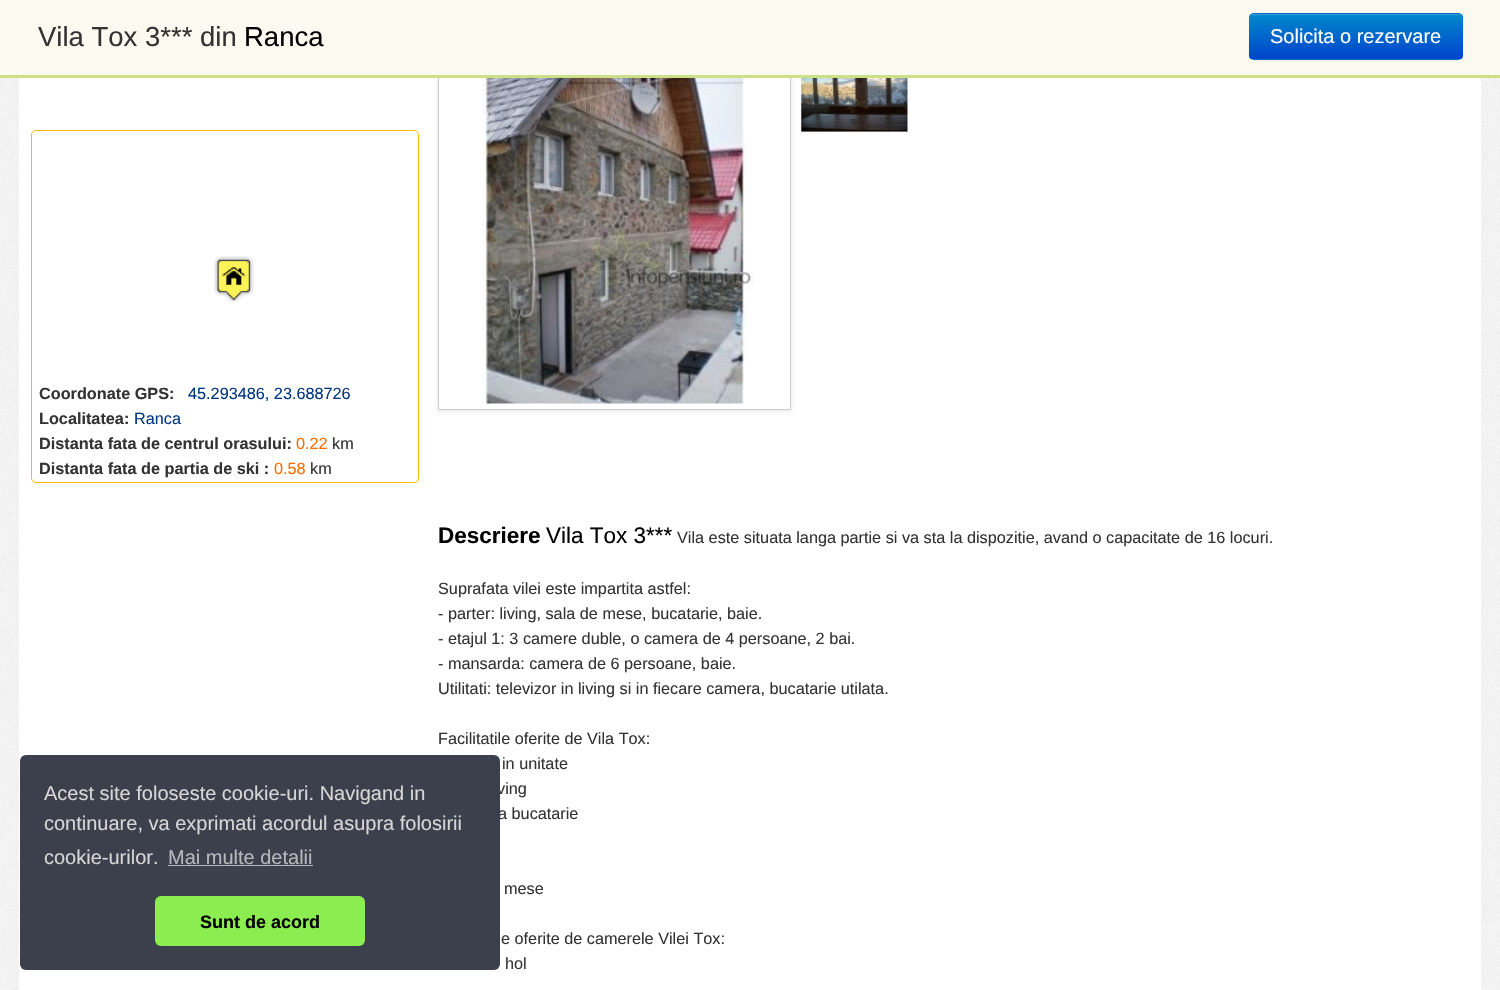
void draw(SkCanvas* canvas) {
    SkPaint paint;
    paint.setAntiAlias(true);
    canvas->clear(0xFFFFFFFF);
    canvas->drawImageRect(SkImages::DeferredFromEncodedData(SkData::MakeFromFileName("img1.png")), SkRect::MakeXYWH(0, 78, 1500, 912), SkSamplingOptions());
    paint.setColor(0xFFFFFFFF);
    canvas->drawRect(SkRect::MakeXYWH(19, 78, 1462, 912), paint);
    canvas->save();
    canvas->clipPath(SkPathBuilder(SkPathFillType::kEvenOdd).moveTo(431, 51).lineTo(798, 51).lineTo(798, 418).lineTo(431, 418).close().moveTo(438, 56).lineTo(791, 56).lineTo(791, 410).lineTo(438, 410).close().detach(), true);
    paint.setColor(0x1A000000);
    paint.setMaskFilter(SkMaskFilter::MakeBlur(kNormal_SkBlurStyle, 2));
    canvas->drawRect(SkRect::MakeXYWH(438, 58, 353, 353), paint);
    paint.setMaskFilter(nullptr);
    canvas->restore();
    paint.setStyle(SkPaint::kStroke_Style);
    paint.setStrokeWidth(1);
    paint.setColor(0xFFCCCCCC);
    canvas->drawRect(SkRect::MakeXYWH(438.5f, 56.5f, 352, 353), paint);
    paint.setStyle(SkPaint::kFill_Style);
    paint.setColor(0xFFFAFAF1);
    canvas->drawRect(SkRect::MakeXYWH(0, 0, 1500, 75), paint);
    paint.setColor(0xFFCCE088);
    canvas->drawRect(SkRect::MakeXYWH(0, 75, 1500, 3), paint);
    SkFont font1(fontMgr->matchFamilyStyle("Liberation Sans", SkFontStyle::Normal()), 27.5f);
    font1.setSubpixel(true);
    paint.setColor(0xFF333333);
    canvas->drawString("Vila Tox 3*** din", 38, 46, font1, paint);
    paint.setColor(0xFF000000);
    canvas->drawString("Ranca", 244, 46, font1, paint);
    paint.setColor(0x0D000000);
    paint.setMaskFilter(SkMaskFilter::MakeBlur(kNormal_SkBlurStyle, 1));
    canvas->drawRoundRect(SkRect::MakeXYWH(1249, 14, 214, 47), 5, 5, paint);
    paint.setMaskFilter(nullptr);
    paint.setColor(0xFF006DCC);
    canvas->drawRoundRect(SkRect::MakeXYWH(1249, 13, 214, 47), 5, 5, paint);
    canvas->save();
    canvas->clipPath(SkPathBuilder().moveTo(1254, 13).lineTo(1458, 13).cubicTo(1461, 13, 1463, 15, 1463, 18).lineTo(1463, 55).cubicTo(1463, 58, 1461, 60, 1458, 60).lineTo(1254, 60).cubicTo(1251, 60, 1249, 58, 1249, 55).lineTo(1249, 18).cubicTo(1249, 15, 1251, 13, 1254, 13).close().detach(), true);
    {
        const SkColor colors[] = {0xFF0088CC, 0xFF0044CC};
        const float stops[] = {0, 1};
        const SkPoint ends[] = {{1356, 14}, {1356, 59}};
        paint.setShader(SkGradientShader::MakeLinear(ends, colors, stops, 2, SkTileMode::kClamp));
        paint.setAlpha(255);
    }
    canvas->drawRect(SkRect::MakeXYWH(1249, 14, 214, 45), paint);
    canvas->restore();
    paint.setShader(nullptr);
    paint.setColor(0x33FFFFFF);
    canvas->drawPath(SkPathBuilder().moveTo(1254, 15).lineTo(1459, 15).lineTo(1460, 16).lineTo(1461, 19).lineTo(1461, 18).cubicTo(1461, 16, 1459, 14, 1457, 14).lineTo(1254, 14).cubicTo(1252, 14, 1250, 16, 1250, 18).lineTo(1250, 19).cubicTo(1250, 17, 1252, 15, 1254, 15).close().detach(), paint);
    SkFont font2(fontMgr->matchFamilyStyle("Liberation Sans", SkFontStyle::Normal()), 20);
    font2.setSubpixel(true);
    paint.setColor(0xFFFFFFFF);
    canvas->drawString("Solicita o rezervare", 1270, 43, font2, paint);
    paint.setStyle(SkPaint::kStroke_Style);
    paint.setColor(0xFFFEBA02);
    canvas->drawRoundRect(SkRect::MakeXYWH(31.5f, 130.5f, 387, 352), 4.5f, 4.5f, paint);
    canvas->drawImageRect(SkImages::DeferredFromEncodedData(SkData::MakeFromFileName("img2.png")), SkRect::MakeXYWH(214, 256, 40, 46), SkSamplingOptions());
    SkFont font3(fontMgr->matchFamilyStyle("Liberation Sans", SkFontStyle::Bold()), 16.25f);
    font3.setSubpixel(true);
    paint.setStyle(SkPaint::kFill_Style);
    paint.setColor(0xFF333333);
    canvas->drawString("Coordonate GPS:", 39, 399, font3, paint);
    SkFont font4(fontMgr->matchFamilyStyle("Liberation Sans", SkFontStyle::Normal()), 16.25f);
    font4.setSubpixel(true);
    paint.setColor(0xFF003580);
    canvas->drawString("45.293486, 23.688726", 188, 399, font4, paint);
    paint.setColor(0xFF333333);
    canvas->drawString("Localitatea:", 39, 424, font3, paint);
    paint.setColor(0xFF003580);
    canvas->drawString("Ranca", 134, 424, font4, paint);
    paint.setColor(0xFF333333);
    canvas->drawString("Distanta fata de centrul orasului:", 39, 449, font3, paint);
    paint.setColor(0xFFFF6C00);
    canvas->drawString("0.22", 296, 449, font4, paint);
    paint.setColor(0xFF333333);
    canvas->drawString("km", 332, 449, font4, paint);
    canvas->drawString("Distanta fata de partia de ski :", 39, 474, font3, paint);
    paint.setColor(0xFFFF6C00);
    canvas->drawString("0.58", 274, 474, font4, paint);
    paint.setColor(0xFF333333);
    canvas->drawString("km", 310, 474, font4, paint);
    canvas->drawImageRect(SkImages::DeferredFromEncodedData(SkData::MakeFromFileName("img3.png")), SkRect::MakeXYWH(482, 78, 272, 326), SkSamplingOptions());
    canvas->drawImageRect(SkImages::DeferredFromEncodedData(SkData::MakeFromFileName("img4.png")), SkRect::MakeXYWH(801, 78, 107, 55), SkSamplingOptions());
    SkFont font5(fontMgr->matchFamilyStyle("Liberation Sans", SkFontStyle::Bold()), 22.5f);
    font5.setSubpixel(true);
    paint.setColor(0xFF000000);
    canvas->drawString("Descriere", 438, 543, font5, paint);
    SkFont font6(fontMgr->matchFamilyStyle("Liberation Sans", SkFontStyle::Normal()), 22.5f);
    font6.setSubpixel(true);
    canvas->drawString("Vila Tox 3***", 546, 543, font6, paint);
    paint.setColor(0xFF333333);
    canvas->drawString("Vila este situata langa partie si va sta la dispozitie, avand o capacitate de 16 locuri.", 677, 543, font4, paint);
    canvas->drawString("Suprafata vilei este impartita astfel:", 438, 594, font4, paint);
    canvas->drawString("- parter: living, sala de mese, bucatarie, baie.", 438, 619, font4, paint);
    canvas->drawString("- etajul 1: 3 camere duble, o camera de 4 persoane, 2 bai.", 438, 644, font4, paint);
    canvas->drawString("- mansarda: camera de 6 persoane, baie.", 438, 669, font4, paint);
    canvas->drawString("Utilitati: televizor in living si in fiecare camera, bucatarie utilata.", 438, 694, font4, paint);
    canvas->drawString("Facilitatile oferite de Vila Tox:", 438, 744, font4, paint);
    canvas->drawString("in unitate", 502, 769, font4, paint);
    canvas->drawString("ving", 497, 794, font4, paint);
    canvas->drawString("a bucatarie", 498, 819, font4, paint);
    canvas->drawString("mese", 504, 894, font4, paint);
    canvas->drawString("e oferite de camerele Vilei Tox:", 501, 944, font4, paint);
    canvas->drawString("hol", 505, 969, font4, paint);
    paint.setColor(0xFF3C404D);
    canvas->drawRoundRect(SkRect::MakeXYWH(20, 755, 480, 215), 6, 6, paint);
    paint.setColor(0xFFD6D6D6);
    canvas->drawString("Acest site foloseste cookie-uri. Navigand in", 44, 800, font2, paint);
    canvas->drawString("continuare, va exprimati acordul asupra folosirii", 44, 830, font2, paint);
    canvas->drawString("cookie-urilor.", 44, 864, font2, paint);
    paint.setColor(0xFFB7B8BB);
    canvas->drawString("Mai multe detalii", 168, 864, font2, paint);
    canvas->drawRect(SkRect::MakeXYWH(168, 865, 145, 1), paint);
    paint.setColor(0xFF8BED4F);
    canvas->drawRoundRect(SkRect::MakeXYWH(155, 896, 210, 50), 6, 6, paint);
    SkFont font7(fontMgr->matchFamilyStyle("Liberation Sans", SkFontStyle::Bold()), 18);
    font7.setSubpixel(true);
    paint.setColor(0xFF000000);
    canvas->drawString("Sunt de acord", 200, 928, font7, paint);
}
